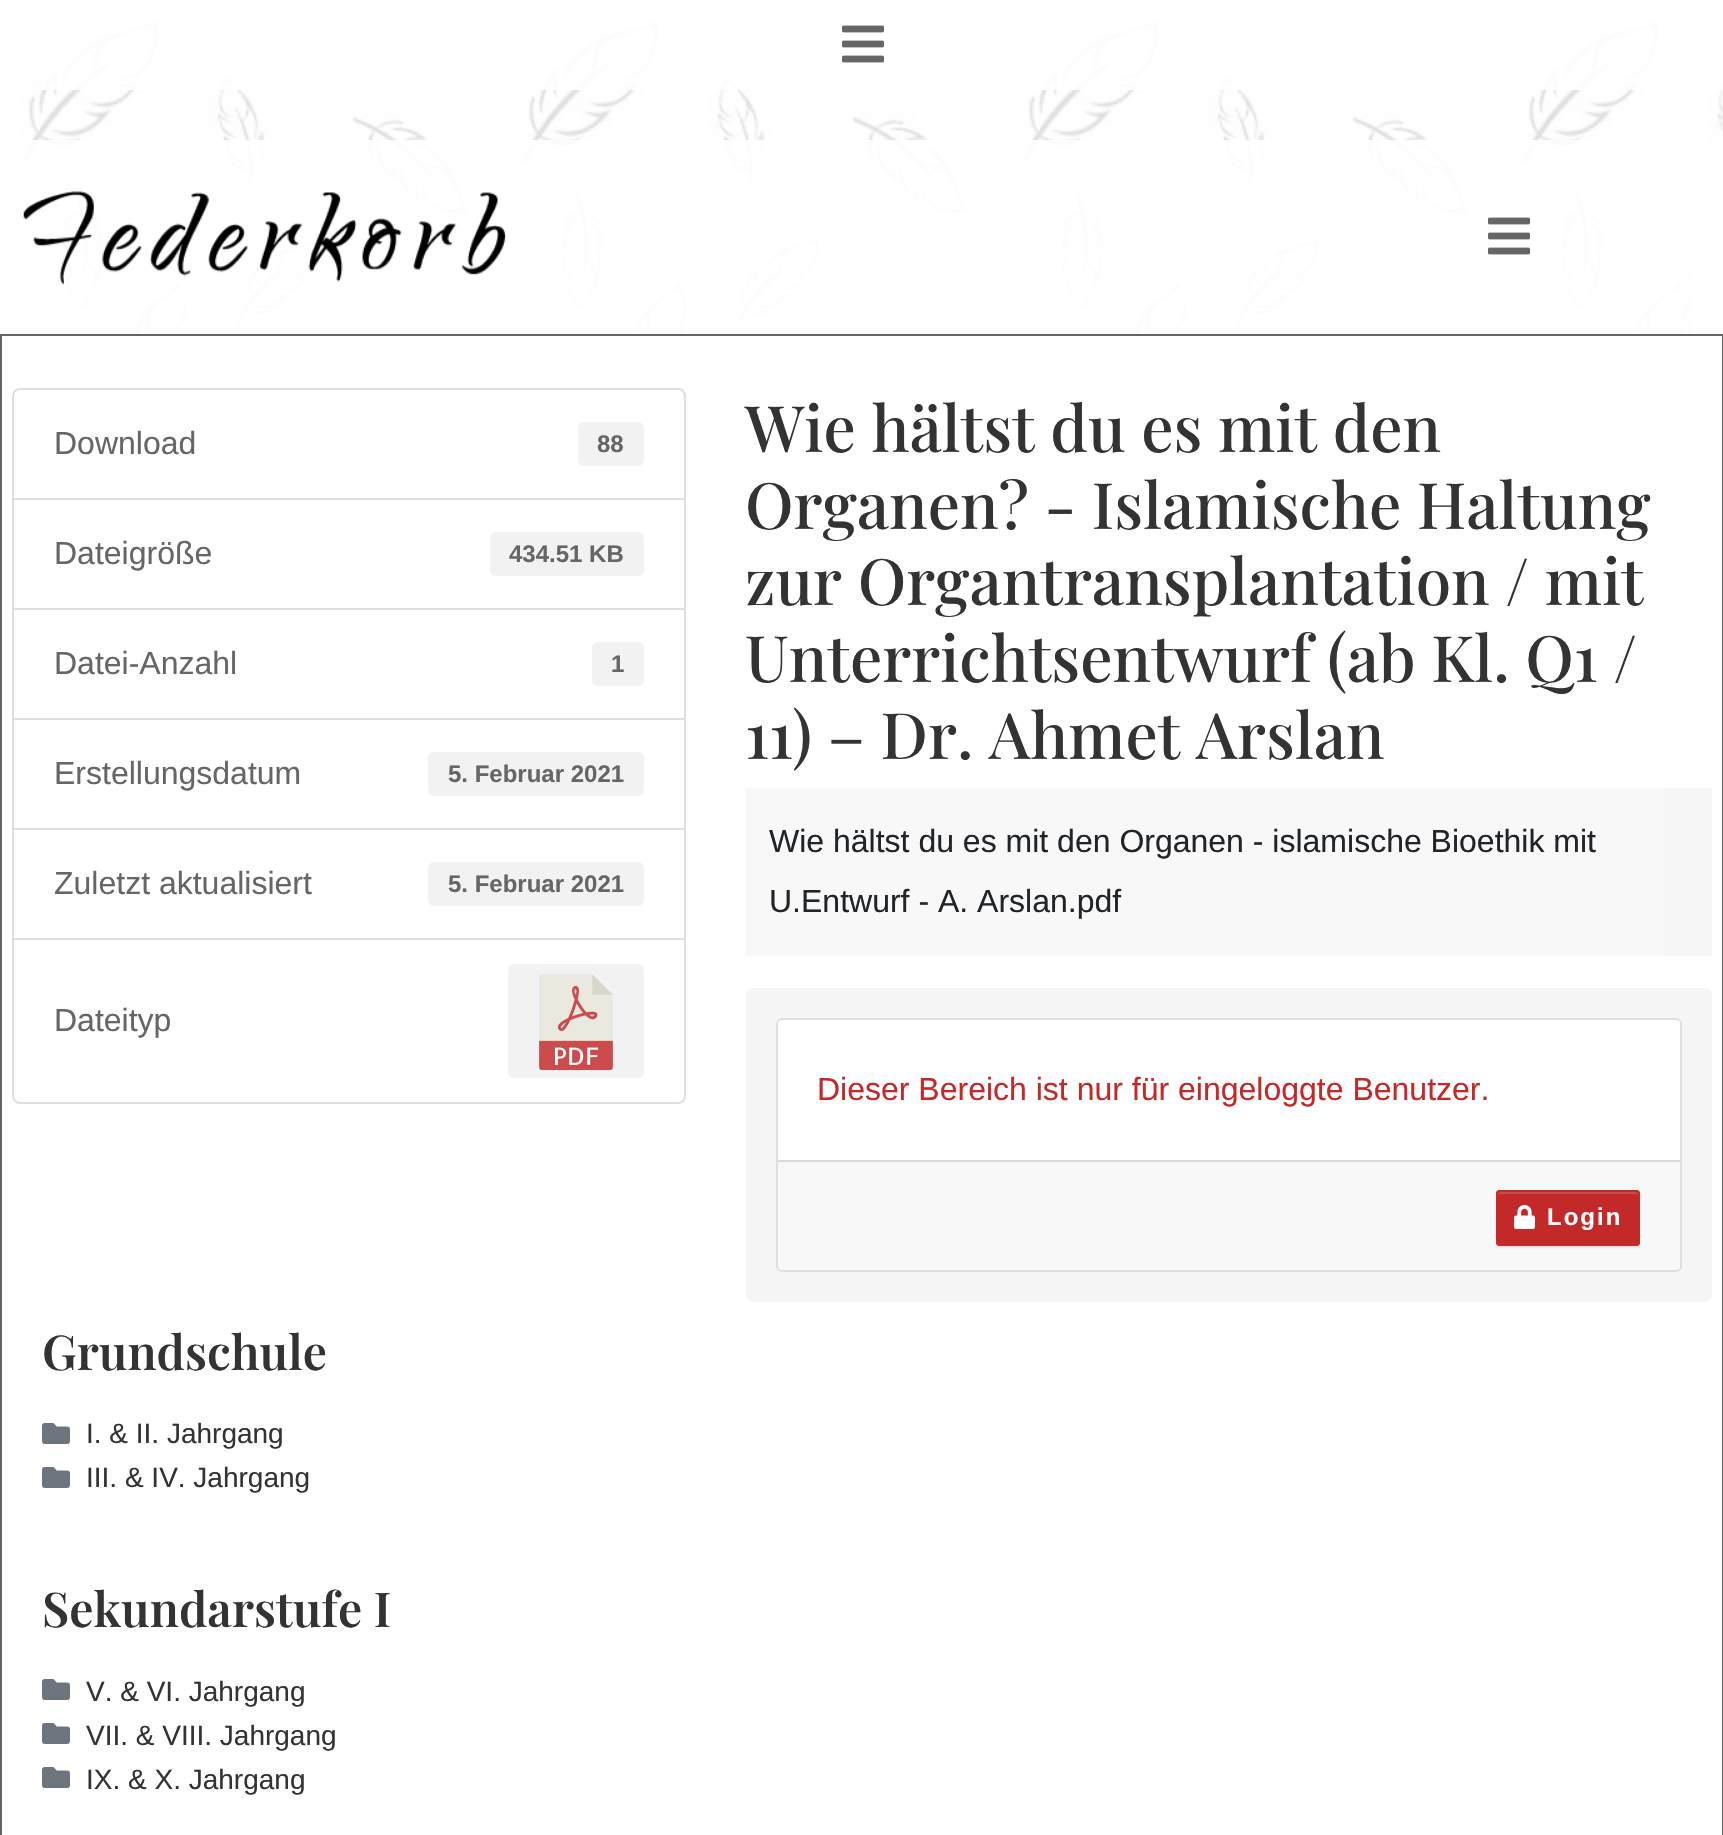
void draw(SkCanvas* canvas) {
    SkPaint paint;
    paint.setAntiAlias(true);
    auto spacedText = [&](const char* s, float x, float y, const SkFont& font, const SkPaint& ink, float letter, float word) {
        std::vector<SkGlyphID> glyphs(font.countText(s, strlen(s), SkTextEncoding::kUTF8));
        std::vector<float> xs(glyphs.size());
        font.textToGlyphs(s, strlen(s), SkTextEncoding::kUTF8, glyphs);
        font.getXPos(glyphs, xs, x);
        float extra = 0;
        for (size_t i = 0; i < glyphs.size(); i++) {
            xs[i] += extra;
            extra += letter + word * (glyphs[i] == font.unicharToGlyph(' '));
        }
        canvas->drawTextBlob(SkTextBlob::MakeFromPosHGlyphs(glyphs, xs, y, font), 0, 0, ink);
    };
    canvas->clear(0xFFFFFFFF);
    canvas->drawImageRect(SkImages::DeferredFromEncodedData(SkData::MakeFromFileName("img1.png")), SkRect::MakeXYWH(20, 20, 1703, 314), SkSamplingOptions());
    paint.setStyle(SkPaint::kStroke_Style);
    paint.setStrokeWidth(2);
    paint.setColor(0xFF666666);
    canvas->drawRect(SkRect::MakeXYWH(1, 335, 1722, 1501), paint);
    paint.setStyle(SkPaint::kFill_Style);
    paint.setColor(0xDEFFFFFF);
    canvas->drawRect(SkRect::MakeXYWH(41, 20, 1682, 70), paint);
    canvas->drawImageRect(SkImages::DeferredFromEncodedData(SkData::MakeFromFileName("img2.png")), SkRect::MakeXYWH(842, 25, 42, 38), SkSamplingOptions());
    canvas->drawRect(SkRect::MakeXYWH(20, 140, 1667, 194), paint);
    canvas->drawImageRect(SkImages::DeferredFromEncodedData(SkData::MakeFromFileName("img3.png")), SkRect::MakeXYWH(23, 191, 483, 94), SkSamplingOptions());
    canvas->drawImageRect(SkImages::DeferredFromEncodedData(SkData::MakeFromFileName("img2.png")), SkRect::MakeXYWH(1488, 217, 42, 38), SkSamplingOptions());
    paint.setStyle(SkPaint::kStroke_Style);
    paint.setColor(0xFFDFDFDF);
    canvas->drawPath(SkPathBuilder().moveTo(20, 389).lineTo(678, 389).cubicTo(682, 389, 685, 392, 685, 396).lineTo(685, 499).lineTo(13, 499).lineTo(13, 396).cubicTo(13, 392, 16, 389, 20, 389).close().detach(), paint);
    SkFont font1(fontMgr->matchFamilyStyle("Liberation Sans", SkFontStyle::Normal()), 32);
    font1.setSubpixel(true);
    paint.setStyle(SkPaint::kFill_Style);
    paint.setColor(0xFF666666);
    canvas->drawString("Download", 54, 454, font1, paint);
    paint.setColor(0xFFF2F2F2);
    canvas->drawRoundRect(SkRect::MakeXYWH(578, 422, 66, 44), 6, 6, paint);
    SkFont font2(fontMgr->matchFamilyStyle("Liberation Sans", SkFontStyle::Bold()), 24);
    font2.setSubpixel(true);
    paint.setColor(0xFF666666);
    canvas->drawString("88", 597, 452, font2, paint);
    paint.setStyle(SkPaint::kStroke_Style);
    paint.setColor(0xFFDFDFDF);
    canvas->drawRect(SkRect::MakeXYWH(13, 499, 672, 110), paint);
    paint.setStyle(SkPaint::kFill_Style);
    paint.setColor(0xFF666666);
    canvas->drawString("Dateigröße", 54, 564, font1, paint);
    paint.setColor(0xFFF2F2F2);
    canvas->drawRoundRect(SkRect::MakeXYWH(490, 532, 154, 44), 6, 6, paint);
    paint.setColor(0xFF666666);
    canvas->drawString("434.51 KB", 509, 562, font2, paint);
    paint.setStyle(SkPaint::kStroke_Style);
    paint.setColor(0xFFDFDFDF);
    canvas->drawRect(SkRect::MakeXYWH(13, 609, 672, 110), paint);
    paint.setStyle(SkPaint::kFill_Style);
    paint.setColor(0xFF666666);
    canvas->drawString("Datei-Anzahl", 54, 674, font1, paint);
    paint.setColor(0xFFF2F2F2);
    canvas->drawRoundRect(SkRect::MakeXYWH(592, 642, 52, 44), 6, 6, paint);
    paint.setColor(0xFF666666);
    canvas->drawString("1", 611, 672, font2, paint);
    paint.setStyle(SkPaint::kStroke_Style);
    paint.setColor(0xFFDFDFDF);
    canvas->drawRect(SkRect::MakeXYWH(13, 719, 672, 110), paint);
    paint.setStyle(SkPaint::kFill_Style);
    paint.setColor(0xFF666666);
    canvas->drawString("Erstellungsdatum", 54, 784, font1, paint);
    paint.setColor(0xFFF2F2F2);
    canvas->drawRoundRect(SkRect::MakeXYWH(428, 752, 216, 44), 6, 6, paint);
    paint.setColor(0xFF666666);
    canvas->drawString("5. Februar 2021", 448, 782, font2, paint);
    paint.setStyle(SkPaint::kStroke_Style);
    paint.setColor(0xFFDFDFDF);
    canvas->drawRect(SkRect::MakeXYWH(13, 829, 672, 110), paint);
    paint.setStyle(SkPaint::kFill_Style);
    paint.setColor(0xFF666666);
    canvas->drawString("Zuletzt aktualisiert", 54, 894, font1, paint);
    paint.setColor(0xFFF2F2F2);
    canvas->drawRoundRect(SkRect::MakeXYWH(428, 862, 216, 44), 6, 6, paint);
    paint.setColor(0xFF666666);
    canvas->drawString("5. Februar 2021", 448, 892, font2, paint);
    paint.setColor(0xFFFFFFFF);
    canvas->drawPath(SkPathBuilder().moveTo(13, 939).lineTo(685, 939).lineTo(685, 1096).cubicTo(685, 1100, 682, 1103, 678, 1103).lineTo(20, 1103).cubicTo(16, 1103, 13, 1100, 13, 1096).close().detach(), paint);
    paint.setStyle(SkPaint::kStroke_Style);
    paint.setColor(0xFFDFDFDF);
    canvas->drawPath(SkPathBuilder().moveTo(13, 939).lineTo(685, 939).lineTo(685, 1096).cubicTo(685, 1100, 682, 1103, 678, 1103).lineTo(20, 1103).cubicTo(16, 1103, 13, 1100, 13, 1096).close().detach(), paint);
    paint.setStyle(SkPaint::kFill_Style);
    paint.setColor(0xFF666666);
    canvas->drawString("Dateityp", 54, 1031, font1, paint);
    paint.setColor(0xFFF2F2F2);
    canvas->drawRoundRect(SkRect::MakeXYWH(508, 964, 136, 114), 6, 6, paint);
    canvas->drawImageRect(SkImages::DeferredFromEncodedData(SkData::MakeFromFileName("img4.png")), SkRect::MakeXYWH(539, 974, 74, 96), SkSamplingOptions());
    SkFont font3(fontMgr->matchFamilyStyle("Playfair Display", SkFontStyle(500, SkFontStyle::kNormal_Width, SkFontStyle::kUpright_Slant)), 64);
    font3.setSubpixel(true);
    paint.setColor(0xFF333333);
    canvas->drawString("Wie hältst du es mit den", 745, 452, font3, paint);
    canvas->drawString("Organen? - Islamische Haltung", 745, 529, font3, paint);
    canvas->drawString("zur Organtransplantation / mit", 745, 605, font3, paint);
    canvas->drawString("Unterrichtsentwurf (ab Kl. Q1 /", 745, 682, font3, paint);
    canvas->drawString("11) – Dr. Ahmet Arslan", 745, 759, font3, paint);
    paint.setColor(0xFFF8F8F8);
    canvas->drawRect(SkRect::MakeXYWH(746, 788, 918, 168), paint);
    paint.setColor(0xFF212529);
    canvas->drawString("Wie hältst du es mit den Organen - islamische Bioethik mit", 769, 852, font1, paint);
    canvas->drawString("U.Entwurf - A. Arslan.pdf", 769, 912, font1, paint);
    paint.setColor(0xFFF7F7F7);
    canvas->drawRect(SkRect::MakeXYWH(1664, 788, 48, 168), paint);
    paint.setColor(0xFFF5F5F5);
    canvas->drawRoundRect(SkRect::MakeXYWH(746, 988, 966, 314), 8, 8, paint);
    paint.setColor(0xFFFFFFFF);
    canvas->drawRoundRect(SkRect::MakeXYWH(777, 1019, 904, 252), 5, 5, paint);
    paint.setStyle(SkPaint::kStroke_Style);
    paint.setColor(0xFFDFDFDF);
    canvas->drawRoundRect(SkRect::MakeXYWH(777, 1019, 904, 252), 5, 5, paint);
    paint.setStyle(SkPaint::kFill_Style);
    paint.setColor(0xFFC42929);
    canvas->drawString("Dieser Bereich ist nur für eingeloggte Benutzer.", 817, 1100, font1, paint);
    paint.setColor(0xFFF8F8F8);
    canvas->drawPath(SkPathBuilder().moveTo(778, 1160).lineTo(1680, 1160).lineTo(1680, 1264).cubicTo(1680, 1267.5f, 1677.5f, 1270, 1674, 1270).lineTo(784, 1270).cubicTo(780.5f, 1270, 778, 1267.5f, 778, 1264).close().detach(), paint);
    paint.setColor(0xFFD9D9D9);
    canvas->drawRect(SkRect::MakeXYWH(778, 1160, 902, 2), paint);
    paint.setColor(0x12000000);
    paint.setMaskFilter(SkMaskFilter::MakeBlur(kNormal_SkBlurStyle, 1));
    canvas->drawRoundRect(SkRect::MakeXYWH(1496, 1192, 144, 56), 4, 4, paint);
    paint.setMaskFilter(nullptr);
    paint.setColor(0xFFC42929);
    canvas->drawRoundRect(SkRect::MakeXYWH(1496, 1190, 144, 56), 4, 4, paint);
    paint.setColor(0xFFCD4949);
    canvas->drawPath(SkPathBuilder().moveTo(1500, 1194).lineTo(1636, 1194).cubicTo(1637, 1194, 1638, 1195, 1638, 1196).lineTo(1638, 1194).cubicTo(1638, 1193, 1637, 1192, 1636, 1192).lineTo(1500, 1192).cubicTo(1499, 1192, 1498, 1193, 1498, 1194).lineTo(1498, 1196).cubicTo(1498, 1195, 1499, 1194, 1500, 1194).close().detach(), paint);
    paint.setStyle(SkPaint::kStroke_Style);
    paint.setColor(0xFFC42929);
    canvas->drawRoundRect(SkRect::MakeXYWH(1497, 1191, 142, 54), 3, 3, paint);
    canvas->drawImageRect(SkImages::DeferredFromEncodedData(SkData::MakeFromFileName("img5.png")), SkRect::MakeXYWH(1514, 1205, 21, 24), SkSamplingOptions());
    paint.setStyle(SkPaint::kFill_Style);
    paint.setColor(0xFFFFFFFF);
    spacedText("Login", 1547, 1225, font2, paint, 2, 0);
    SkFont font4(fontMgr->matchFamilyStyle("Playfair Display", SkFontStyle(600, SkFontStyle::kNormal_Width, SkFontStyle::kUpright_Slant)), 48);
    font4.setSubpixel(true);
    paint.setColor(0xFF333333);
    canvas->drawString("Grundschule", 42, 1370, font4, paint);
    canvas->drawImageRect(SkImages::DeferredFromEncodedData(SkData::MakeFromFileName("img6.png")), SkRect::MakeXYWH(42, 1423, 28, 21), SkSamplingOptions());
    SkFont font5(fontMgr->matchFamilyStyle("Liberation Sans", SkFontStyle::Normal()), 28);
    font5.setSubpixel(true);
    canvas->drawString("I. & II. Jahrgang", 86, 1443, font5, paint);
    canvas->drawImageRect(SkImages::DeferredFromEncodedData(SkData::MakeFromFileName("img6.png")), SkRect::MakeXYWH(42, 1467, 28, 21), SkSamplingOptions());
    canvas->drawString("III. & IV. Jahrgang", 86, 1487, font5, paint);
    canvas->drawString("Sekundarstufe I", 42, 1627, font4, paint);
    canvas->drawImageRect(SkImages::DeferredFromEncodedData(SkData::MakeFromFileName("img6.png")), SkRect::MakeXYWH(42, 1679, 28, 21), SkSamplingOptions());
    canvas->drawString("V. & VI. Jahrgang", 86, 1701, font5, paint);
    canvas->drawImageRect(SkImages::DeferredFromEncodedData(SkData::MakeFromFileName("img6.png")), SkRect::MakeXYWH(42, 1723, 28, 21), SkSamplingOptions());
    canvas->drawString("VII. & VIII. Jahrgang", 86, 1745, font5, paint);
    canvas->drawImageRect(SkImages::DeferredFromEncodedData(SkData::MakeFromFileName("img6.png")), SkRect::MakeXYWH(42, 1767, 28, 21), SkSamplingOptions());
    canvas->drawString("IX. & X. Jahrgang", 86, 1789, font5, paint);
}
